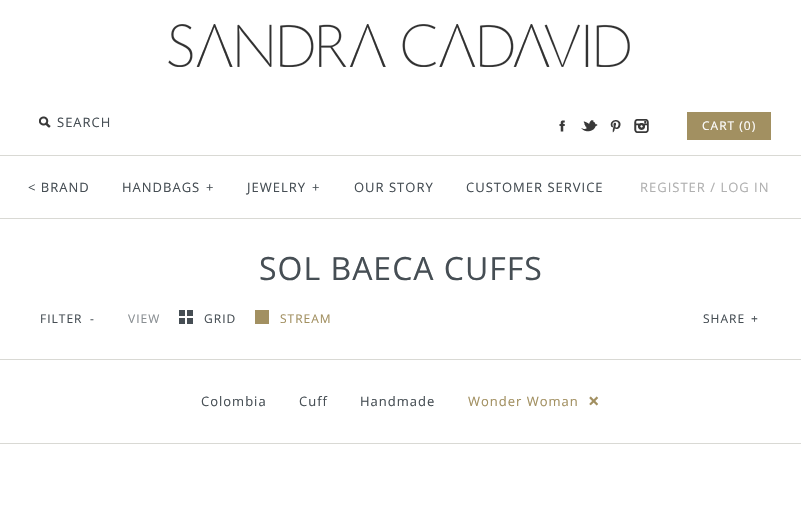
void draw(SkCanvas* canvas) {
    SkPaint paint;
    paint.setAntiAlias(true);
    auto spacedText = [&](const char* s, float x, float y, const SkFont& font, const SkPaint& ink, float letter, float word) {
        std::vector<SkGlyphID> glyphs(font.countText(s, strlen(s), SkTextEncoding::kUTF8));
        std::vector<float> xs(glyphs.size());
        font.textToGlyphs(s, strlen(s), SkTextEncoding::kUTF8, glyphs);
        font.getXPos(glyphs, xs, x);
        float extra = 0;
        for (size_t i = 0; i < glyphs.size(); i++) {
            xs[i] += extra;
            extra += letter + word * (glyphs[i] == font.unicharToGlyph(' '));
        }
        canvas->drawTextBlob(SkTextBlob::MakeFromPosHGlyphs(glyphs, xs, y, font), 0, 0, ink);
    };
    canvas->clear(0xFFFFFFFF);
    canvas->drawImageRect(SkImages::DeferredFromEncodedData(SkData::MakeFromFileName("img1.png")), SkRect::MakeXYWH(168, 24, 462, 43), SkSamplingOptions());
    canvas->drawImageRect(SkImages::DeferredFromEncodedData(SkData::MakeFromFileName("img2.png")), SkRect::MakeXYWH(39, 116, 12, 12), SkSamplingOptions());
    SkFont font1(fontMgr->matchFamilyStyle("Open Sans", SkFontStyle::Normal()), 13);
    font1.setSubpixel(true);
    paint.setColor(0xFF464E54);
    spacedText("SEARCH", 57, 127, font1, paint, 1, 0);
    canvas->drawImageRect(SkImages::DeferredFromEncodedData(SkData::MakeFromFileName("img3.png")), SkRect::MakeXYWH(559, 120, 6, 12), SkSamplingOptions());
    canvas->drawImageRect(SkImages::DeferredFromEncodedData(SkData::MakeFromFileName("img4.png")), SkRect::MakeXYWH(581, 120, 17, 12), SkSamplingOptions());
    canvas->drawImageRect(SkImages::DeferredFromEncodedData(SkData::MakeFromFileName("img5.png")), SkRect::MakeXYWH(610, 120, 11, 13), SkSamplingOptions());
    canvas->drawImageRect(SkImages::DeferredFromEncodedData(SkData::MakeFromFileName("img6.png")), SkRect::MakeXYWH(634, 119, 15, 14), SkSamplingOptions());
    paint.setColor(0xFFA29061);
    canvas->drawRect(SkRect::MakeXYWH(687, 112, 84, 28), paint);
    SkFont font2(fontMgr->matchFamilyStyle("Open Sans", SkFontStyle::Normal()), 12);
    font2.setSubpixel(true);
    paint.setColor(0xFFFFFFFF);
    spacedText("CART (0)", 702, 130, font2, paint, 1, 0);
    paint.setColor(0xFFD9D9D4);
    canvas->drawRect(SkRect::MakeXYWH(0, 218, 801, 1), paint);
    canvas->drawRect(SkRect::MakeXYWH(0, 155, 801, 1), paint);
    paint.setColor(0xFF464E54);
    spacedText("< BRAND", 28, 192, font1, paint, 1, 0);
    spacedText("HANDBAGS", 122, 192, font1, paint, 1, 0);
    spacedText("+", 206, 192, font1, paint, 1, 0);
    spacedText("JEWELRY", 247, 192, font1, paint, 1, 0);
    spacedText("+", 312, 192, font1, paint, 1, 0);
    spacedText("OUR STORY", 354, 192, font1, paint, 1, 0);
    spacedText("CUSTOMER SERVICE", 466, 192, font1, paint, 1, 0);
    paint.setColor(0xFFB0B0B0);
    spacedText("REGISTER / LOG IN", 640, 192, font1, paint, 1, 0);
    SkFont font3(fontMgr->matchFamilyStyle("Open Sans", SkFontStyle::Normal()), 32);
    font3.setSubpixel(true);
    paint.setColor(0xFF464E54);
    spacedText("SOL BAECA CUFFS", 259, 280, font3, paint, 1, 0);
    spacedText("FILTER", 40, 323, font2, paint, 1, 0);
    spacedText("-", 90, 323, font2, paint, 1, 0);
    paint.setColor(0xFF8A8F93);
    spacedText("VIEW", 128, 323, font2, paint, 1, 0);
    paint.setColor(0xFF464E54);
    canvas->drawRect(SkRect::MakeXYWH(179, 310, 6, 6), paint);
    canvas->drawRect(SkRect::MakeXYWH(187, 310, 6, 6), paint);
    canvas->drawRect(SkRect::MakeXYWH(179, 318, 6, 6), paint);
    canvas->drawRect(SkRect::MakeXYWH(187, 318, 6, 6), paint);
    spacedText("GRID", 204, 323, font2, paint, 1, 0);
    paint.setColor(0xFFA29061);
    canvas->drawRect(SkRect::MakeXYWH(255, 310, 14, 14), paint);
    spacedText("STREAM", 280, 323, font2, paint, 1, 0);
    paint.setColor(0xFF464E54);
    spacedText("SHARE", 703, 323, font2, paint, 1, 0);
    spacedText("+", 751, 323, font2, paint, 1, 0);
    paint.setColor(0xFFD9D9D4);
    canvas->drawRect(SkRect::MakeXYWH(0, 359, 801, 1), paint);
    canvas->drawRect(SkRect::MakeXYWH(0, 443, 801, 1), paint);
    paint.setColor(0xFF464E54);
    spacedText("Colombia", 201, 406, font1, paint, 1, 0);
    spacedText("Cuff", 299, 406, font1, paint, 1, 0);
    spacedText("Handmade", 360, 406, font1, paint, 1, 0);
    paint.setColor(0xFFA29061);
    spacedText("Wonder Woman", 468, 406, font1, paint, 1, 0);
    SkFont font4(fontMgr->matchFamilyStyle("Open Sans", SkFontStyle::Bold()), 20);
    font4.setSubpixel(true);
    spacedText("×", 588, 408, font4, paint, 1, 0);
}
